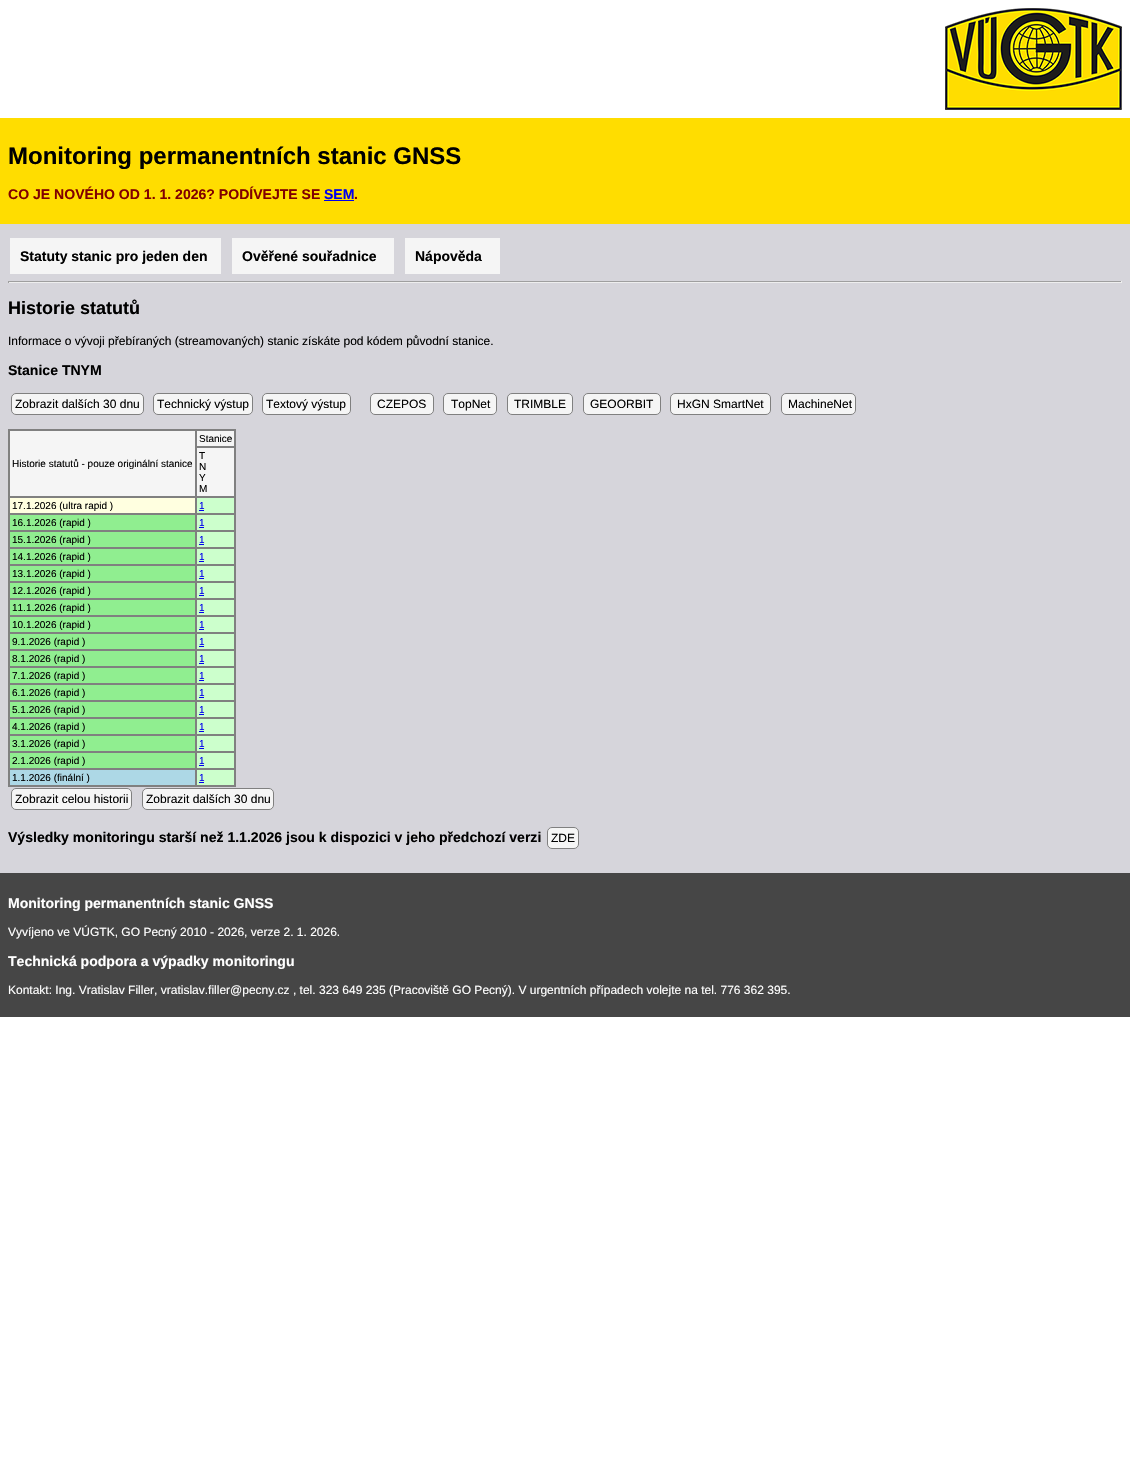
void draw(SkCanvas* canvas) {
    SkPaint paint;
    paint.setAntiAlias(true);
    canvas->clear(0xFFFFFFFF);
    canvas->drawImageRect(SkImages::DeferredFromEncodedData(SkData::MakeFromFileName("img1.png")), SkRect::MakeXYWH(945, 8, 177, 102), SkSamplingOptions());
    paint.setColor(0xFFFFDD00);
    canvas->drawRect(SkRect::MakeXYWH(0, 118, 1130, 106), paint);
    SkFont font1(fontMgr->matchFamilyStyle("Liberation Sans", SkFontStyle::Bold()), 24);
    font1.setSubpixel(true);
    paint.setColor(0xFF000000);
    canvas->drawString("Monitoring permanentních stanic GNSS", 8, 164, font1, paint);
    SkFont font2(fontMgr->matchFamilyStyle("Liberation Sans", SkFontStyle::Bold()), 14.05f);
    font2.setSubpixel(true);
    paint.setColor(0xFF800000);
    canvas->drawString("CO JE NOVÉHO OD 1. 1. 2026? PODÍVEJTE SE", 8, 199, font2, paint);
    paint.setColor(0xFF0000EE);
    canvas->drawString("SEM", 324, 199, font2, paint);
    paint.setColor(0xFF800000);
    canvas->drawString(".", 354, 199, font2, paint);
    paint.setColor(0xFF0000EE);
    canvas->drawRect(SkRect::MakeXYWH(324, 200, 30, 1), paint);
    paint.setColor(0xFFD6D5DB);
    canvas->drawRect(SkRect::MakeXYWH(0, 224, 1130, 649), paint);
    paint.setColor(0xFFF5F5F5);
    canvas->drawRect(SkRect::MakeXYWH(10, 238, 211, 36), paint);
    SkFont font3(fontMgr->matchFamilyStyle("Liberation Sans", SkFontStyle::Bold()), 14);
    font3.setSubpixel(true);
    paint.setColor(0xFF000000);
    canvas->drawString("Statuty stanic pro jeden den", 20, 261, font3, paint);
    paint.setColor(0xFFF5F5F5);
    canvas->drawRect(SkRect::MakeXYWH(232, 238, 162, 36), paint);
    paint.setColor(0xFF000000);
    canvas->drawString("Ověřené souřadnice", 242, 261, font3, paint);
    paint.setColor(0xFFF5F5F5);
    canvas->drawRect(SkRect::MakeXYWH(405, 238, 95, 36), paint);
    paint.setColor(0xFF000000);
    canvas->drawString("Nápověda", 415, 261, font3, paint);
    paint.setColor(0xFF9F9F9F);
    canvas->drawRect(SkRect::MakeXYWH(8, 281, 1114, 1), paint);
    paint.setColor(0xFFEEEEEE);
    canvas->drawRect(SkRect::MakeXYWH(1121, 281, 1, 2), paint);
    canvas->drawRect(SkRect::MakeXYWH(8, 282, 1114, 1), paint);
    paint.setColor(0xFF9F9F9F);
    canvas->drawRect(SkRect::MakeXYWH(8, 281, 1, 2), paint);
    SkFont font4(fontMgr->matchFamilyStyle("Liberation Sans", SkFontStyle::Bold()), 18);
    font4.setSubpixel(true);
    paint.setColor(0xFF000000);
    canvas->drawString("Historie statutů", 8, 314, font4, paint);
    SkFont font5(fontMgr->matchFamilyStyle("Liberation Sans", SkFontStyle::Normal()), 12);
    font5.setSubpixel(true);
    canvas->drawString("Informace o vývoji přebíraných (streamovaných) stanic získáte pod kódem původní stanice.", 8, 345, font5, paint);
    canvas->drawString("Stanice TNYM", 8, 375, font2, paint);
    paint.setColor(0xFFF5F5F5);
    canvas->drawRoundRect(SkRect::MakeXYWH(11.5f, 393.5f, 132, 21), 4.5f, 4.5f, paint);
    paint.setStyle(SkPaint::kStroke_Style);
    paint.setStrokeWidth(1);
    paint.setColor(0xFF808080);
    canvas->drawRoundRect(SkRect::MakeXYWH(11.5f, 393.5f, 132, 21), 4.5f, 4.5f, paint);
    paint.setStyle(SkPaint::kFill_Style);
    paint.setColor(0xFF000000);
    canvas->drawString("Zobrazit dalších 30 dnu", 15, 408, font5, paint);
    paint.setColor(0xFFF5F5F5);
    canvas->drawRoundRect(SkRect::MakeXYWH(153.5f, 393.5f, 99, 21), 4.5f, 4.5f, paint);
    paint.setStyle(SkPaint::kStroke_Style);
    paint.setColor(0xFF808080);
    canvas->drawRoundRect(SkRect::MakeXYWH(153.5f, 393.5f, 99, 21), 4.5f, 4.5f, paint);
    paint.setStyle(SkPaint::kFill_Style);
    paint.setColor(0xFF000000);
    canvas->drawString("Technický výstup", 157, 408, font5, paint);
    paint.setColor(0xFFF5F5F5);
    canvas->drawRoundRect(SkRect::MakeXYWH(262.5f, 393.5f, 88, 21), 4.5f, 4.5f, paint);
    paint.setStyle(SkPaint::kStroke_Style);
    paint.setColor(0xFF808080);
    canvas->drawRoundRect(SkRect::MakeXYWH(262.5f, 393.5f, 88, 21), 4.5f, 4.5f, paint);
    paint.setStyle(SkPaint::kFill_Style);
    paint.setColor(0xFF000000);
    canvas->drawString("Textový výstup", 266, 408, font5, paint);
    paint.setColor(0xFFF5F5F5);
    canvas->drawRoundRect(SkRect::MakeXYWH(370.5f, 393.5f, 63, 21), 4.5f, 4.5f, paint);
    paint.setStyle(SkPaint::kStroke_Style);
    paint.setColor(0xFF808080);
    canvas->drawRoundRect(SkRect::MakeXYWH(370.5f, 393.5f, 63, 21), 4.5f, 4.5f, paint);
    paint.setStyle(SkPaint::kFill_Style);
    paint.setColor(0xFF000000);
    canvas->drawString("CZEPOS", 377, 408, font5, paint);
    paint.setColor(0xFFF5F5F5);
    canvas->drawRoundRect(SkRect::MakeXYWH(443.5f, 393.5f, 53, 21), 4.5f, 4.5f, paint);
    paint.setStyle(SkPaint::kStroke_Style);
    paint.setColor(0xFF808080);
    canvas->drawRoundRect(SkRect::MakeXYWH(443.5f, 393.5f, 53, 21), 4.5f, 4.5f, paint);
    paint.setStyle(SkPaint::kFill_Style);
    paint.setColor(0xFF000000);
    canvas->drawString("TopNet", 451, 408, font5, paint);
    paint.setColor(0xFFF5F5F5);
    canvas->drawRoundRect(SkRect::MakeXYWH(507.5f, 393.5f, 65, 21), 4.5f, 4.5f, paint);
    paint.setStyle(SkPaint::kStroke_Style);
    paint.setColor(0xFF808080);
    canvas->drawRoundRect(SkRect::MakeXYWH(507.5f, 393.5f, 65, 21), 4.5f, 4.5f, paint);
    paint.setStyle(SkPaint::kFill_Style);
    paint.setColor(0xFF000000);
    canvas->drawString("TRIMBLE", 514, 408, font5, paint);
    paint.setColor(0xFFF5F5F5);
    canvas->drawRoundRect(SkRect::MakeXYWH(583.5f, 393.5f, 77, 21), 4.5f, 4.5f, paint);
    paint.setStyle(SkPaint::kStroke_Style);
    paint.setColor(0xFF808080);
    canvas->drawRoundRect(SkRect::MakeXYWH(583.5f, 393.5f, 77, 21), 4.5f, 4.5f, paint);
    paint.setStyle(SkPaint::kFill_Style);
    paint.setColor(0xFF000000);
    canvas->drawString("GEOORBIT", 590, 408, font5, paint);
    paint.setColor(0xFFF5F5F5);
    canvas->drawRoundRect(SkRect::MakeXYWH(670.5f, 393.5f, 100, 21), 4.5f, 4.5f, paint);
    paint.setStyle(SkPaint::kStroke_Style);
    paint.setColor(0xFF808080);
    canvas->drawRoundRect(SkRect::MakeXYWH(670.5f, 393.5f, 100, 21), 4.5f, 4.5f, paint);
    paint.setStyle(SkPaint::kFill_Style);
    paint.setColor(0xFF000000);
    canvas->drawString("HxGN SmartNet", 677, 408, font5, paint);
    paint.setColor(0xFFF5F5F5);
    canvas->drawRoundRect(SkRect::MakeXYWH(781.5f, 393.5f, 74, 21), 4.5f, 4.5f, paint);
    paint.setStyle(SkPaint::kStroke_Style);
    paint.setColor(0xFF808080);
    canvas->drawRoundRect(SkRect::MakeXYWH(781.5f, 393.5f, 74, 21), 4.5f, 4.5f, paint);
    paint.setStyle(SkPaint::kFill_Style);
    paint.setColor(0xFF000000);
    canvas->drawString("MachineNet", 788, 408, font5, paint);
    paint.setColor(0xFFF5F5F5);
    canvas->drawRect(SkRect::MakeXYWH(10, 431, 224, 65), paint);
    paint.setStyle(SkPaint::kStroke_Style);
    paint.setColor(0xFF808080);
    canvas->drawRect(SkRect::MakeXYWH(8.5f, 429.5f, 227, 357), paint);
    canvas->drawRect(SkRect::MakeXYWH(196.5f, 430.5f, 38, 16), paint);
    SkFont font6(fontMgr->matchFamilyStyle("Liberation Sans", SkFontStyle::Normal()), 10);
    font6.setSubpixel(true);
    paint.setStyle(SkPaint::kFill_Style);
    paint.setColor(0xFF000000);
    canvas->drawString("Stanice", 199, 442, font6, paint);
    paint.setStyle(SkPaint::kStroke_Style);
    paint.setColor(0xFF808080);
    canvas->drawRect(SkRect::MakeXYWH(9.5f, 430.5f, 186, 66), paint);
    paint.setStyle(SkPaint::kFill_Style);
    paint.setColor(0xFF000000);
    canvas->drawString("Historie statutů - pouze originální stanice", 12, 467, font6, paint);
    paint.setStyle(SkPaint::kStroke_Style);
    paint.setColor(0xFF808080);
    canvas->drawRect(SkRect::MakeXYWH(196.5f, 447.5f, 38, 49), paint);
    paint.setStyle(SkPaint::kFill_Style);
    paint.setColor(0xFF000000);
    canvas->drawString("T", 199, 459, font6, paint);
    canvas->drawString("N", 199, 470, font6, paint);
    canvas->drawString("Y", 199, 481, font6, paint);
    canvas->drawString("M", 199, 492, font6, paint);
    paint.setColor(0xFFFFFFE0);
    canvas->drawRect(SkRect::MakeXYWH(9.5f, 497.5f, 186, 16), paint);
    paint.setStyle(SkPaint::kStroke_Style);
    paint.setColor(0xFF808080);
    canvas->drawRect(SkRect::MakeXYWH(9.5f, 497.5f, 186, 16), paint);
    paint.setStyle(SkPaint::kFill_Style);
    paint.setColor(0xFF000000);
    canvas->drawString("17.1.2026 (ultra rapid )", 12, 509, font6, paint);
    paint.setColor(0xFFCCFFCC);
    canvas->drawRect(SkRect::MakeXYWH(196.5f, 497.5f, 38, 16), paint);
    paint.setStyle(SkPaint::kStroke_Style);
    paint.setColor(0xFF808080);
    canvas->drawRect(SkRect::MakeXYWH(196.5f, 497.5f, 38, 16), paint);
    paint.setStyle(SkPaint::kFill_Style);
    paint.setColor(0xFF0000EE);
    canvas->drawString("1", 199, 509, font6, paint);
    canvas->drawRect(SkRect::MakeXYWH(199, 510, 5, 1), paint);
    paint.setColor(0xFF90EE90);
    canvas->drawRect(SkRect::MakeXYWH(9.5f, 514.5f, 186, 16), paint);
    paint.setStyle(SkPaint::kStroke_Style);
    paint.setColor(0xFF808080);
    canvas->drawRect(SkRect::MakeXYWH(9.5f, 514.5f, 186, 16), paint);
    paint.setStyle(SkPaint::kFill_Style);
    paint.setColor(0xFF000000);
    canvas->drawString("16.1.2026 (rapid )", 12, 526, font6, paint);
    paint.setColor(0xFFCCFFCC);
    canvas->drawRect(SkRect::MakeXYWH(196.5f, 514.5f, 38, 16), paint);
    paint.setStyle(SkPaint::kStroke_Style);
    paint.setColor(0xFF808080);
    canvas->drawRect(SkRect::MakeXYWH(196.5f, 514.5f, 38, 16), paint);
    paint.setStyle(SkPaint::kFill_Style);
    paint.setColor(0xFF0000EE);
    canvas->drawString("1", 199, 526, font6, paint);
    canvas->drawRect(SkRect::MakeXYWH(199, 527, 5, 1), paint);
    paint.setColor(0xFF90EE90);
    canvas->drawRect(SkRect::MakeXYWH(9.5f, 531.5f, 186, 16), paint);
    paint.setStyle(SkPaint::kStroke_Style);
    paint.setColor(0xFF808080);
    canvas->drawRect(SkRect::MakeXYWH(9.5f, 531.5f, 186, 16), paint);
    paint.setStyle(SkPaint::kFill_Style);
    paint.setColor(0xFF000000);
    canvas->drawString("15.1.2026 (rapid )", 12, 543, font6, paint);
    paint.setColor(0xFFCCFFCC);
    canvas->drawRect(SkRect::MakeXYWH(196.5f, 531.5f, 38, 16), paint);
    paint.setStyle(SkPaint::kStroke_Style);
    paint.setColor(0xFF808080);
    canvas->drawRect(SkRect::MakeXYWH(196.5f, 531.5f, 38, 16), paint);
    paint.setStyle(SkPaint::kFill_Style);
    paint.setColor(0xFF0000EE);
    canvas->drawString("1", 199, 543, font6, paint);
    canvas->drawRect(SkRect::MakeXYWH(199, 544, 5, 1), paint);
    paint.setColor(0xFF90EE90);
    canvas->drawRect(SkRect::MakeXYWH(9.5f, 548.5f, 186, 16), paint);
    paint.setStyle(SkPaint::kStroke_Style);
    paint.setColor(0xFF808080);
    canvas->drawRect(SkRect::MakeXYWH(9.5f, 548.5f, 186, 16), paint);
    paint.setStyle(SkPaint::kFill_Style);
    paint.setColor(0xFF000000);
    canvas->drawString("14.1.2026 (rapid )", 12, 560, font6, paint);
    paint.setColor(0xFFCCFFCC);
    canvas->drawRect(SkRect::MakeXYWH(196.5f, 548.5f, 38, 16), paint);
    paint.setStyle(SkPaint::kStroke_Style);
    paint.setColor(0xFF808080);
    canvas->drawRect(SkRect::MakeXYWH(196.5f, 548.5f, 38, 16), paint);
    paint.setStyle(SkPaint::kFill_Style);
    paint.setColor(0xFF0000EE);
    canvas->drawString("1", 199, 560, font6, paint);
    canvas->drawRect(SkRect::MakeXYWH(199, 561, 5, 1), paint);
    paint.setColor(0xFF90EE90);
    canvas->drawRect(SkRect::MakeXYWH(9.5f, 565.5f, 186, 16), paint);
    paint.setStyle(SkPaint::kStroke_Style);
    paint.setColor(0xFF808080);
    canvas->drawRect(SkRect::MakeXYWH(9.5f, 565.5f, 186, 16), paint);
    paint.setStyle(SkPaint::kFill_Style);
    paint.setColor(0xFF000000);
    canvas->drawString("13.1.2026 (rapid )", 12, 577, font6, paint);
    paint.setColor(0xFFCCFFCC);
    canvas->drawRect(SkRect::MakeXYWH(196.5f, 565.5f, 38, 16), paint);
    paint.setStyle(SkPaint::kStroke_Style);
    paint.setColor(0xFF808080);
    canvas->drawRect(SkRect::MakeXYWH(196.5f, 565.5f, 38, 16), paint);
    paint.setStyle(SkPaint::kFill_Style);
    paint.setColor(0xFF0000EE);
    canvas->drawString("1", 199, 577, font6, paint);
    canvas->drawRect(SkRect::MakeXYWH(199, 578, 5, 1), paint);
    paint.setColor(0xFF90EE90);
    canvas->drawRect(SkRect::MakeXYWH(9.5f, 582.5f, 186, 16), paint);
    paint.setStyle(SkPaint::kStroke_Style);
    paint.setColor(0xFF808080);
    canvas->drawRect(SkRect::MakeXYWH(9.5f, 582.5f, 186, 16), paint);
    paint.setStyle(SkPaint::kFill_Style);
    paint.setColor(0xFF000000);
    canvas->drawString("12.1.2026 (rapid )", 12, 594, font6, paint);
    paint.setColor(0xFFCCFFCC);
    canvas->drawRect(SkRect::MakeXYWH(196.5f, 582.5f, 38, 16), paint);
    paint.setStyle(SkPaint::kStroke_Style);
    paint.setColor(0xFF808080);
    canvas->drawRect(SkRect::MakeXYWH(196.5f, 582.5f, 38, 16), paint);
    paint.setStyle(SkPaint::kFill_Style);
    paint.setColor(0xFF0000EE);
    canvas->drawString("1", 199, 594, font6, paint);
    canvas->drawRect(SkRect::MakeXYWH(199, 595, 5, 1), paint);
    paint.setColor(0xFF90EE90);
    canvas->drawRect(SkRect::MakeXYWH(9.5f, 599.5f, 186, 16), paint);
    paint.setStyle(SkPaint::kStroke_Style);
    paint.setColor(0xFF808080);
    canvas->drawRect(SkRect::MakeXYWH(9.5f, 599.5f, 186, 16), paint);
    paint.setStyle(SkPaint::kFill_Style);
    paint.setColor(0xFF000000);
    canvas->drawString("11.1.2026 (rapid )", 12, 611, font6, paint);
    paint.setColor(0xFFCCFFCC);
    canvas->drawRect(SkRect::MakeXYWH(196.5f, 599.5f, 38, 16), paint);
    paint.setStyle(SkPaint::kStroke_Style);
    paint.setColor(0xFF808080);
    canvas->drawRect(SkRect::MakeXYWH(196.5f, 599.5f, 38, 16), paint);
    paint.setStyle(SkPaint::kFill_Style);
    paint.setColor(0xFF0000EE);
    canvas->drawString("1", 199, 611, font6, paint);
    canvas->drawRect(SkRect::MakeXYWH(199, 612, 5, 1), paint);
    paint.setColor(0xFF90EE90);
    canvas->drawRect(SkRect::MakeXYWH(9.5f, 616.5f, 186, 16), paint);
    paint.setStyle(SkPaint::kStroke_Style);
    paint.setColor(0xFF808080);
    canvas->drawRect(SkRect::MakeXYWH(9.5f, 616.5f, 186, 16), paint);
    paint.setStyle(SkPaint::kFill_Style);
    paint.setColor(0xFF000000);
    canvas->drawString("10.1.2026 (rapid )", 12, 628, font6, paint);
    paint.setColor(0xFFCCFFCC);
    canvas->drawRect(SkRect::MakeXYWH(196.5f, 616.5f, 38, 16), paint);
    paint.setStyle(SkPaint::kStroke_Style);
    paint.setColor(0xFF808080);
    canvas->drawRect(SkRect::MakeXYWH(196.5f, 616.5f, 38, 16), paint);
    paint.setStyle(SkPaint::kFill_Style);
    paint.setColor(0xFF0000EE);
    canvas->drawString("1", 199, 628, font6, paint);
    canvas->drawRect(SkRect::MakeXYWH(199, 629, 5, 1), paint);
    paint.setColor(0xFF90EE90);
    canvas->drawRect(SkRect::MakeXYWH(9.5f, 633.5f, 186, 16), paint);
    paint.setStyle(SkPaint::kStroke_Style);
    paint.setColor(0xFF808080);
    canvas->drawRect(SkRect::MakeXYWH(9.5f, 633.5f, 186, 16), paint);
    paint.setStyle(SkPaint::kFill_Style);
    paint.setColor(0xFF000000);
    canvas->drawString("9.1.2026 (rapid )", 12, 645, font6, paint);
    paint.setColor(0xFFCCFFCC);
    canvas->drawRect(SkRect::MakeXYWH(196.5f, 633.5f, 38, 16), paint);
    paint.setStyle(SkPaint::kStroke_Style);
    paint.setColor(0xFF808080);
    canvas->drawRect(SkRect::MakeXYWH(196.5f, 633.5f, 38, 16), paint);
    paint.setStyle(SkPaint::kFill_Style);
    paint.setColor(0xFF0000EE);
    canvas->drawString("1", 199, 645, font6, paint);
    canvas->drawRect(SkRect::MakeXYWH(199, 646, 5, 1), paint);
    paint.setColor(0xFF90EE90);
    canvas->drawRect(SkRect::MakeXYWH(9.5f, 650.5f, 186, 16), paint);
    paint.setStyle(SkPaint::kStroke_Style);
    paint.setColor(0xFF808080);
    canvas->drawRect(SkRect::MakeXYWH(9.5f, 650.5f, 186, 16), paint);
    paint.setStyle(SkPaint::kFill_Style);
    paint.setColor(0xFF000000);
    canvas->drawString("8.1.2026 (rapid )", 12, 662, font6, paint);
    paint.setColor(0xFFCCFFCC);
    canvas->drawRect(SkRect::MakeXYWH(196.5f, 650.5f, 38, 16), paint);
    paint.setStyle(SkPaint::kStroke_Style);
    paint.setColor(0xFF808080);
    canvas->drawRect(SkRect::MakeXYWH(196.5f, 650.5f, 38, 16), paint);
    paint.setStyle(SkPaint::kFill_Style);
    paint.setColor(0xFF0000EE);
    canvas->drawString("1", 199, 662, font6, paint);
    canvas->drawRect(SkRect::MakeXYWH(199, 663, 5, 1), paint);
    paint.setColor(0xFF90EE90);
    canvas->drawRect(SkRect::MakeXYWH(9.5f, 667.5f, 186, 16), paint);
    paint.setStyle(SkPaint::kStroke_Style);
    paint.setColor(0xFF808080);
    canvas->drawRect(SkRect::MakeXYWH(9.5f, 667.5f, 186, 16), paint);
    paint.setStyle(SkPaint::kFill_Style);
    paint.setColor(0xFF000000);
    canvas->drawString("7.1.2026 (rapid )", 12, 679, font6, paint);
    paint.setColor(0xFFCCFFCC);
    canvas->drawRect(SkRect::MakeXYWH(196.5f, 667.5f, 38, 16), paint);
    paint.setStyle(SkPaint::kStroke_Style);
    paint.setColor(0xFF808080);
    canvas->drawRect(SkRect::MakeXYWH(196.5f, 667.5f, 38, 16), paint);
    paint.setStyle(SkPaint::kFill_Style);
    paint.setColor(0xFF0000EE);
    canvas->drawString("1", 199, 679, font6, paint);
    canvas->drawRect(SkRect::MakeXYWH(199, 680, 5, 1), paint);
    paint.setColor(0xFF90EE90);
    canvas->drawRect(SkRect::MakeXYWH(9.5f, 684.5f, 186, 16), paint);
    paint.setStyle(SkPaint::kStroke_Style);
    paint.setColor(0xFF808080);
    canvas->drawRect(SkRect::MakeXYWH(9.5f, 684.5f, 186, 16), paint);
    paint.setStyle(SkPaint::kFill_Style);
    paint.setColor(0xFF000000);
    canvas->drawString("6.1.2026 (rapid )", 12, 696, font6, paint);
    paint.setColor(0xFFCCFFCC);
    canvas->drawRect(SkRect::MakeXYWH(196.5f, 684.5f, 38, 16), paint);
    paint.setStyle(SkPaint::kStroke_Style);
    paint.setColor(0xFF808080);
    canvas->drawRect(SkRect::MakeXYWH(196.5f, 684.5f, 38, 16), paint);
    paint.setStyle(SkPaint::kFill_Style);
    paint.setColor(0xFF0000EE);
    canvas->drawString("1", 199, 696, font6, paint);
    canvas->drawRect(SkRect::MakeXYWH(199, 697, 5, 1), paint);
    paint.setColor(0xFF90EE90);
    canvas->drawRect(SkRect::MakeXYWH(9.5f, 701.5f, 186, 16), paint);
    paint.setStyle(SkPaint::kStroke_Style);
    paint.setColor(0xFF808080);
    canvas->drawRect(SkRect::MakeXYWH(9.5f, 701.5f, 186, 16), paint);
    paint.setStyle(SkPaint::kFill_Style);
    paint.setColor(0xFF000000);
    canvas->drawString("5.1.2026 (rapid )", 12, 713, font6, paint);
    paint.setColor(0xFFCCFFCC);
    canvas->drawRect(SkRect::MakeXYWH(196.5f, 701.5f, 38, 16), paint);
    paint.setStyle(SkPaint::kStroke_Style);
    paint.setColor(0xFF808080);
    canvas->drawRect(SkRect::MakeXYWH(196.5f, 701.5f, 38, 16), paint);
    paint.setStyle(SkPaint::kFill_Style);
    paint.setColor(0xFF0000EE);
    canvas->drawString("1", 199, 713, font6, paint);
    canvas->drawRect(SkRect::MakeXYWH(199, 714, 5, 1), paint);
    paint.setColor(0xFF90EE90);
    canvas->drawRect(SkRect::MakeXYWH(9.5f, 718.5f, 186, 16), paint);
    paint.setStyle(SkPaint::kStroke_Style);
    paint.setColor(0xFF808080);
    canvas->drawRect(SkRect::MakeXYWH(9.5f, 718.5f, 186, 16), paint);
    paint.setStyle(SkPaint::kFill_Style);
    paint.setColor(0xFF000000);
    canvas->drawString("4.1.2026 (rapid )", 12, 730, font6, paint);
    paint.setColor(0xFFCCFFCC);
    canvas->drawRect(SkRect::MakeXYWH(196.5f, 718.5f, 38, 16), paint);
    paint.setStyle(SkPaint::kStroke_Style);
    paint.setColor(0xFF808080);
    canvas->drawRect(SkRect::MakeXYWH(196.5f, 718.5f, 38, 16), paint);
    paint.setStyle(SkPaint::kFill_Style);
    paint.setColor(0xFF0000EE);
    canvas->drawString("1", 199, 730, font6, paint);
    canvas->drawRect(SkRect::MakeXYWH(199, 731, 5, 1), paint);
    paint.setColor(0xFF90EE90);
    canvas->drawRect(SkRect::MakeXYWH(9.5f, 735.5f, 186, 16), paint);
    paint.setStyle(SkPaint::kStroke_Style);
    paint.setColor(0xFF808080);
    canvas->drawRect(SkRect::MakeXYWH(9.5f, 735.5f, 186, 16), paint);
    paint.setStyle(SkPaint::kFill_Style);
    paint.setColor(0xFF000000);
    canvas->drawString("3.1.2026 (rapid )", 12, 747, font6, paint);
    paint.setColor(0xFFCCFFCC);
    canvas->drawRect(SkRect::MakeXYWH(196.5f, 735.5f, 38, 16), paint);
    paint.setStyle(SkPaint::kStroke_Style);
    paint.setColor(0xFF808080);
    canvas->drawRect(SkRect::MakeXYWH(196.5f, 735.5f, 38, 16), paint);
    paint.setStyle(SkPaint::kFill_Style);
    paint.setColor(0xFF0000EE);
    canvas->drawString("1", 199, 747, font6, paint);
    canvas->drawRect(SkRect::MakeXYWH(199, 748, 5, 1), paint);
    paint.setColor(0xFF90EE90);
    canvas->drawRect(SkRect::MakeXYWH(9.5f, 752.5f, 186, 16), paint);
    paint.setStyle(SkPaint::kStroke_Style);
    paint.setColor(0xFF808080);
    canvas->drawRect(SkRect::MakeXYWH(9.5f, 752.5f, 186, 16), paint);
    paint.setStyle(SkPaint::kFill_Style);
    paint.setColor(0xFF000000);
    canvas->drawString("2.1.2026 (rapid )", 12, 764, font6, paint);
    paint.setColor(0xFFCCFFCC);
    canvas->drawRect(SkRect::MakeXYWH(196.5f, 752.5f, 38, 16), paint);
    paint.setStyle(SkPaint::kStroke_Style);
    paint.setColor(0xFF808080);
    canvas->drawRect(SkRect::MakeXYWH(196.5f, 752.5f, 38, 16), paint);
    paint.setStyle(SkPaint::kFill_Style);
    paint.setColor(0xFF0000EE);
    canvas->drawString("1", 199, 764, font6, paint);
    canvas->drawRect(SkRect::MakeXYWH(199, 765, 5, 1), paint);
    paint.setColor(0xFFADD8E6);
    canvas->drawRect(SkRect::MakeXYWH(9.5f, 769.5f, 186, 16), paint);
    paint.setStyle(SkPaint::kStroke_Style);
    paint.setColor(0xFF808080);
    canvas->drawRect(SkRect::MakeXYWH(9.5f, 769.5f, 186, 16), paint);
    paint.setStyle(SkPaint::kFill_Style);
    paint.setColor(0xFF000000);
    canvas->drawString("1.1.2026 (finální )", 12, 781, font6, paint);
    paint.setColor(0xFFCCFFCC);
    canvas->drawRect(SkRect::MakeXYWH(196.5f, 769.5f, 38, 16), paint);
    paint.setStyle(SkPaint::kStroke_Style);
    paint.setColor(0xFF808080);
    canvas->drawRect(SkRect::MakeXYWH(196.5f, 769.5f, 38, 16), paint);
    paint.setStyle(SkPaint::kFill_Style);
    paint.setColor(0xFF0000EE);
    canvas->drawString("1", 199, 781, font6, paint);
    canvas->drawRect(SkRect::MakeXYWH(199, 782, 5, 1), paint);
    paint.setColor(0xFFF5F5F5);
    canvas->drawRoundRect(SkRect::MakeXYWH(11.5f, 788.5f, 120, 21), 4.5f, 4.5f, paint);
    paint.setStyle(SkPaint::kStroke_Style);
    paint.setColor(0xFF808080);
    canvas->drawRoundRect(SkRect::MakeXYWH(11.5f, 788.5f, 120, 21), 4.5f, 4.5f, paint);
    paint.setStyle(SkPaint::kFill_Style);
    paint.setColor(0xFF000000);
    canvas->drawString("Zobrazit celou historii", 15, 803, font5, paint);
    paint.setColor(0xFFF5F5F5);
    canvas->drawRoundRect(SkRect::MakeXYWH(142.5f, 788.5f, 131, 21), 4.5f, 4.5f, paint);
    paint.setStyle(SkPaint::kStroke_Style);
    paint.setColor(0xFF808080);
    canvas->drawRoundRect(SkRect::MakeXYWH(142.5f, 788.5f, 131, 21), 4.5f, 4.5f, paint);
    paint.setStyle(SkPaint::kFill_Style);
    paint.setColor(0xFF000000);
    canvas->drawString("Zobrazit dalších 30 dnu", 146, 803, font5, paint);
    canvas->drawString("Výsledky monitoringu starší než 1.1.2026 jsou k dispozici v jeho předchozí verzi", 8, 842, font2, paint);
    paint.setColor(0xFFF5F5F5);
    canvas->drawRoundRect(SkRect::MakeXYWH(547.5f, 827.5f, 31, 21), 4.5f, 4.5f, paint);
    paint.setStyle(SkPaint::kStroke_Style);
    paint.setColor(0xFF808080);
    canvas->drawRoundRect(SkRect::MakeXYWH(547.5f, 827.5f, 31, 21), 4.5f, 4.5f, paint);
    paint.setStyle(SkPaint::kFill_Style);
    paint.setColor(0xFF000000);
    canvas->drawString("ZDE", 551, 842, font5, paint);
    paint.setColor(0xFF464646);
    canvas->drawRect(SkRect::MakeXYWH(0, 873, 1130, 144), paint);
    paint.setColor(0xFFFFFFFF);
    canvas->drawString("Monitoring permanentních stanic GNSS", 8, 908, font2, paint);
    canvas->drawString("Vyvíjeno ve VÚGTK, GO Pecný 2010 - 2026, verze 2. 1. 2026.", 8, 936, font5, paint);
    canvas->drawString("Technická podpora a výpadky monitoringu", 8, 966, font2, paint);
    canvas->drawString("Kontakt: Ing. Vratislav Filler, vratislav.filler@pecny.cz , tel. 323 649 235 (Pracoviště GO Pecný). V urgentních případech volejte na tel. 776 362 395.", 8, 994, font5, paint);
}
